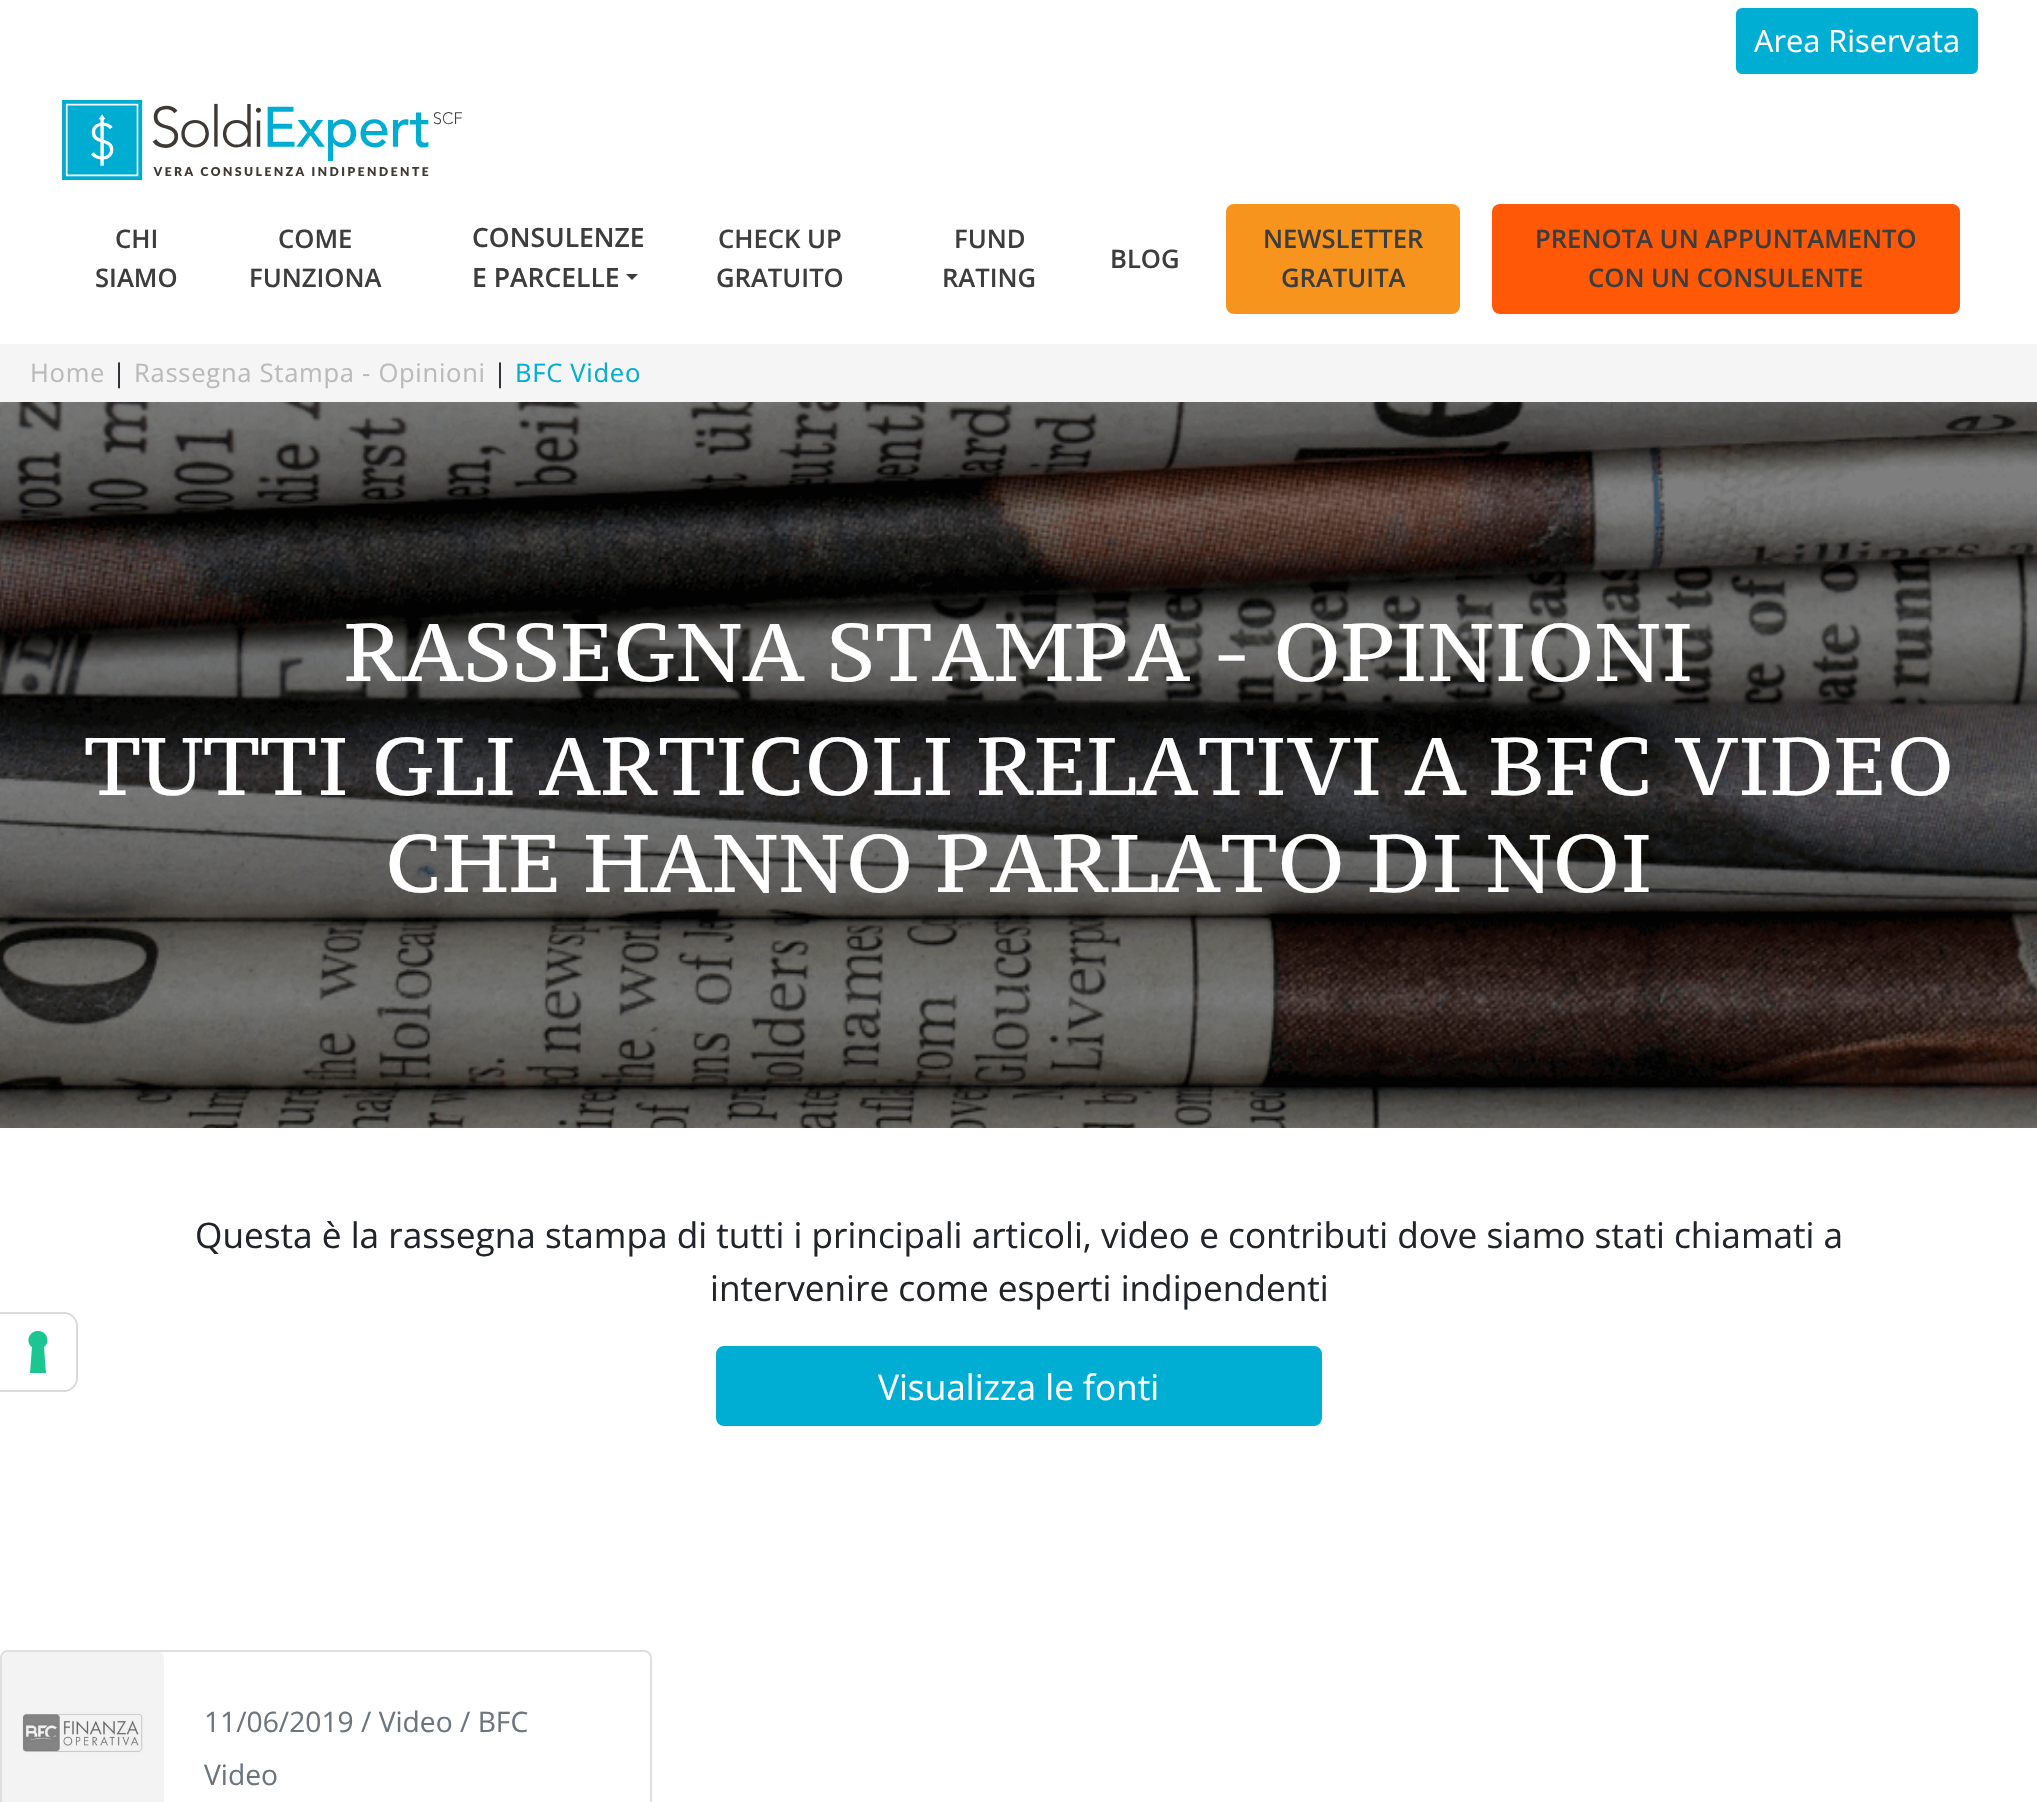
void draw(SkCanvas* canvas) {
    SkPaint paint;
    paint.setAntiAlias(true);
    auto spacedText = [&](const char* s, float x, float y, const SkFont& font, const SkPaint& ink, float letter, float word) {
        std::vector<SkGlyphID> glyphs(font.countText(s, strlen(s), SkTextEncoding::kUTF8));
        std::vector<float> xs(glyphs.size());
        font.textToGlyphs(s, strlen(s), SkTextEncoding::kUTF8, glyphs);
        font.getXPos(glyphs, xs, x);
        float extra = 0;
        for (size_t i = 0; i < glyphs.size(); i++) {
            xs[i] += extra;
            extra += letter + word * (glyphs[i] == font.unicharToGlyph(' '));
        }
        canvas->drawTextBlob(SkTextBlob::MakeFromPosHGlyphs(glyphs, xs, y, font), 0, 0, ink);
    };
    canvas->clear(0xFFFFFFFF);
    paint.setColor(0xFF00ADD3);
    canvas->drawRoundRect(SkRect::MakeXYWH(1737, 9, 240, 64), 5, 5, paint);
    paint.setStyle(SkPaint::kStroke_Style);
    paint.setStrokeWidth(2);
    canvas->drawRoundRect(SkRect::MakeXYWH(1737, 9, 240, 64), 5, 5, paint);
    SkFont font1(fontMgr->matchFamilyStyle("Open Sans", SkFontStyle::Normal()), 30.75f);
    font1.setSubpixel(true);
    paint.setStyle(SkPaint::kFill_Style);
    paint.setColor(0xFFFFFFFF);
    canvas->drawString("Area Riservata", 1754, 52, font1, paint);
    canvas->drawImageRect(SkImages::DeferredFromEncodedData(SkData::MakeFromFileName("img1.png")), SkRect::MakeXYWH(62, 100, 400, 80), SkSamplingOptions());
    SkFont font2(fontMgr->matchFamilyStyle("Open Sans", SkFontStyle(600, SkFontStyle::kNormal_Width, SkFontStyle::kUpright_Slant)), 25.6f);
    font2.setSubpixel(true);
    paint.setColor(0xFF3D3D3D);
    canvas->drawString("CHI", 115, 248, font2, paint);
    canvas->drawString("SIAMO", 95, 287, font2, paint);
    canvas->drawString("COME", 278, 248, font2, paint);
    canvas->drawString("FUNZIONA", 249, 287, font2, paint);
    SkFont font3(fontMgr->matchFamilyStyle("Open Sans", SkFontStyle(600, SkFontStyle::kNormal_Width, SkFontStyle::kUpright_Slant)), 26.5f);
    font3.setSubpixel(true);
    canvas->drawString("CONSULENZE", 472, 247, font3, paint);
    canvas->drawString("E PARCELLE", 472, 287, font3, paint);
    canvas->drawPath(SkPathBuilder().moveTo(626, 274).lineTo(638, 274).lineTo(632, 280).close().detach(), paint);
    canvas->drawString("CHECK UP", 718, 248, font2, paint);
    canvas->drawString("GRATUITO", 716, 287, font2, paint);
    canvas->drawString("FUND", 954, 248, font2, paint);
    canvas->drawString("RATING", 942, 287, font2, paint);
    canvas->drawString("BLOG", 1110, 268, font2, paint);
    paint.setColor(0xFFF7941D);
    canvas->drawRoundRect(SkRect::MakeXYWH(1226, 204, 234, 110), 8, 8, paint);
    paint.setColor(0xFF3D3D3D);
    canvas->drawString("NEWSLETTER", 1263, 248, font2, paint);
    canvas->drawString("GRATUITA", 1281, 287, font2, paint);
    paint.setColor(0xFFFF5806);
    canvas->drawRoundRect(SkRect::MakeXYWH(1492, 204, 468, 110), 8, 8, paint);
    paint.setColor(0xFF3D3D3D);
    canvas->drawString("PRENOTA UN APPUNTAMENTO", 1535, 248, font2, paint);
    canvas->drawString("CON UN CONSULENTE", 1588, 287, font2, paint);
    paint.setColor(0xFFF5F5F5);
    canvas->drawRect(SkRect::MakeXYWH(0, 344, 2037, 58), paint);
    SkFont font4(fontMgr->matchFamilyStyle("Open Sans", SkFontStyle::Normal()), 25.6f);
    font4.setSubpixel(true);
    paint.setColor(0xFFBABABA);
    spacedText("Home", 30, 382, font4, paint, 0.7f, 0);
    paint.setColor(0xFF212529);
    spacedText("|", 112, 382, font4, paint, 0.7f, 0);
    paint.setColor(0xFFBABABA);
    spacedText("Rassegna Stampa - Opinioni", 134, 382, font4, paint, 0.7f, 0);
    paint.setColor(0xFF212529);
    spacedText("|", 493, 382, font4, paint, 0.7f, 0);
    paint.setColor(0xFF00ADD3);
    spacedText("BFC Video", 515, 382, font4, paint, 0.7f, 0);
    canvas->drawImageRect(SkImages::DeferredFromEncodedData(SkData::MakeFromFileName("img2.png")), SkRect::MakeXYWH(0, 402, 2037, 726), SkSamplingOptions());
    SkFont font5(fontMgr->matchFamilyStyle("PT Serif Caption", SkFontStyle::Normal()), 81.5f);
    font5.setSubpixel(true);
    paint.setColor(0xFFFFFFFF);
    canvas->drawString("RASSEGNA STAMPA - OPINIONI", 344, 681, font5, paint);
    canvas->drawString("TUTTI GLI ARTICOLI RELATIVI A BFC VIDEO", 84, 795, font5, paint);
    canvas->drawString("CHE HANNO PARLATO DI NOI", 385, 892, font5, paint);
    SkFont font6(fontMgr->matchFamilyStyle("Open Sans", SkFontStyle::Normal()), 35.2f);
    font6.setSubpixel(true);
    paint.setColor(0xFF212529);
    canvas->drawString("Questa è la rassegna stampa di tutti i principali articoli, video e contributi dove siamo stati chiamati a", 195, 1248, font6, paint);
    canvas->drawString("intervenire come esperti indipendenti", 710, 1301, font6, paint);
    paint.setColor(0xFF00ADD3);
    canvas->drawRoundRect(SkRect::MakeXYWH(717, 1347, 604, 78), 7, 7, paint);
    paint.setStyle(SkPaint::kStroke_Style);
    canvas->drawRoundRect(SkRect::MakeXYWH(717, 1347, 604, 78), 7, 7, paint);
    paint.setStyle(SkPaint::kFill_Style);
    paint.setColor(0xFFFFFFFF);
    canvas->drawString("Visualizza le fonti", 878, 1400, font6, paint);
    paint.setStyle(SkPaint::kStroke_Style);
    paint.setColor(0xFFDFDFDF);
    canvas->drawRoundRect(SkRect::MakeXYWH(1, 1651, 650, 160), 7, 7, paint);
    canvas->drawImageRect(SkImages::DeferredFromEncodedData(SkData::MakeFromFileName("img3.png")), SkRect::MakeXYWH(2, 1652, 162, 150), SkSamplingOptions());
    SkFont font7(fontMgr->matchFamilyStyle("Open Sans", SkFontStyle::Normal()), 28.2f);
    font7.setSubpixel(true);
    paint.setStyle(SkPaint::kFill_Style);
    paint.setColor(0xFF6C757D);
    canvas->drawString("11/06/2019 / Video / BFC", 204, 1732, font7, paint);
    canvas->drawString("Video", 204, 1785, font7, paint);
    paint.setStyle(SkPaint::kStroke_Style);
    paint.setColor(0xFFD9D9D9);
    canvas->drawPath(SkPathBuilder().moveTo(-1, 1313).lineTo(64, 1313).cubicTo(71, 1313, 77, 1319, 77, 1326).lineTo(77, 1378).cubicTo(77, 1385, 71, 1391, 64, 1391).lineTo(-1, 1391).close().detach(), paint);
    paint.setStyle(SkPaint::kFill_Style);
    paint.setColor(0xFFFFFFFF);
    canvas->drawPath(SkPathBuilder().moveTo(0, 1314).lineTo(64, 1314).cubicTo(70.5f, 1314, 76, 1319.5f, 76, 1326).lineTo(76, 1378).cubicTo(76, 1384.5f, 70.5f, 1390, 64, 1390).lineTo(0, 1390).close().detach(), paint);
    paint.setColor(0xFF1CC691);
    canvas->drawPath(SkPathBuilder(SkPathFillType::kEvenOdd).moveTo(38, 1331).cubicTo(47, 1331, 51, 1342, 44, 1347).lineTo(46, 1373).lineTo(30, 1373).lineTo(32, 1347).cubicTo(25, 1342, 29, 1331, 38, 1331).close().detach(), paint);
}
